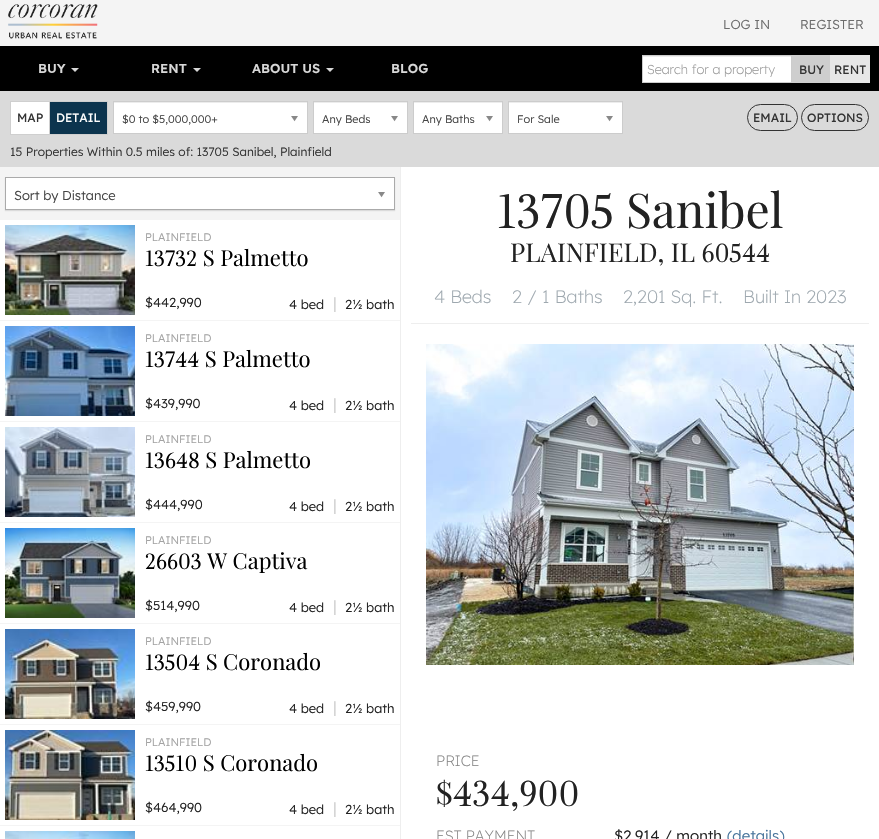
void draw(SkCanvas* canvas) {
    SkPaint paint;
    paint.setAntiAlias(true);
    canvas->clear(0xFFF4F4F4);
    canvas->drawImageRect(SkImages::DeferredFromEncodedData(SkData::MakeFromFileName("img1.png")), SkRect::MakeXYWH(8, 4, 90, 35), SkSamplingOptions());
    SkFont font1(fontMgr->matchFamilyStyle("Lexend", SkFontStyle::Normal()), 13);
    font1.setSubpixel(true);
    paint.setColor(0xFF6D6D6D);
    canvas->drawString("LOG IN", 723, 29, font1, paint);
    canvas->drawString("REGISTER", 800, 29, font1, paint);
    paint.setColor(0xFF000000);
    canvas->drawRect(SkRect::MakeXYWH(0, 46, 879, 45), paint);
    SkFont font2(fontMgr->matchFamilyStyle("Lexend", SkFontStyle(600, SkFontStyle::kNormal_Width, SkFontStyle::kUpright_Slant)), 13);
    font2.setSubpixel(true);
    paint.setColor(0xFFD7D7D7);
    canvas->drawString("BUY", 38, 73, font2, paint);
    canvas->drawPath(SkPathBuilder().moveTo(71, 68).lineTo(79, 68).lineTo(75, 72).close().detach(), paint);
    canvas->drawString("RENT", 151, 73, font2, paint);
    canvas->drawPath(SkPathBuilder().moveTo(193, 68).lineTo(201, 68).lineTo(197, 72).close().detach(), paint);
    canvas->drawString("ABOUT US", 252, 73, font2, paint);
    canvas->drawPath(SkPathBuilder().moveTo(326, 68).lineTo(334, 68).lineTo(330, 72).close().detach(), paint);
    canvas->drawString("BLOG", 391, 73, font2, paint);
    paint.setColor(0xFFFFFFFF);
    canvas->drawRect(SkRect::MakeXYWH(643, 57, 148, 25), paint);
    paint.setColor(0xFFECECEC);
    canvas->drawRect(SkRect::MakeXYWH(643, 56, 148, 1), paint);
    paint.setStyle(SkPaint::kStroke_Style);
    paint.setStrokeWidth(1);
    paint.setColor(0xFFCCCCCC);
    canvas->drawRect(SkRect::MakeXYWH(642.5f, 55.5f, 149, 27), paint);
    SkFont font3(fontMgr->matchFamilyStyle("Lexend", SkFontStyle(300, SkFontStyle::kNormal_Width, SkFontStyle::kUpright_Slant)), 13);
    font3.setSubpixel(true);
    paint.setStyle(SkPaint::kFill_Style);
    paint.setColor(0xFF999999);
    canvas->drawString("Search for a property", 647, 74, font3, paint);
    paint.setColor(0xFFCECECE);
    canvas->drawRect(SkRect::MakeXYWH(792, 55, 38, 28), paint);
    SkFont font4(fontMgr->matchFamilyStyle("Lexend", SkFontStyle(500, SkFontStyle::kNormal_Width, SkFontStyle::kUpright_Slant)), 12);
    font4.setSubpixel(true);
    paint.setColor(0xFF333333);
    canvas->drawString("BUY", 799, 74, font4, paint);
    paint.setColor(0xFFE7E7E7);
    canvas->drawRect(SkRect::MakeXYWH(830, 55, 40, 28), paint);
    paint.setColor(0xFF333333);
    canvas->drawString("RENT", 834, 74, font4, paint);
    paint.setColor(0xFFDADADA);
    canvas->drawRect(SkRect::MakeXYWH(0, 91, 879, 76), paint);
    paint.setColor(0xFFFFFFFF);
    canvas->drawRect(SkRect::MakeXYWH(10.5f, 101.5f, 39, 33), paint);
    paint.setStyle(SkPaint::kStroke_Style);
    paint.setColor(0xFFCFCFCF);
    canvas->drawRect(SkRect::MakeXYWH(10.5f, 101.5f, 39, 33), paint);
    paint.setStyle(SkPaint::kFill_Style);
    paint.setColor(0xFF333333);
    canvas->drawString("MAP", 17, 122, font4, paint);
    paint.setColor(0xFF0C344E);
    canvas->drawRect(SkRect::MakeXYWH(49.5f, 101.5f, 58, 33), paint);
    paint.setStyle(SkPaint::kStroke_Style);
    paint.setColor(0xFFCFCFCF);
    canvas->drawRect(SkRect::MakeXYWH(49.5f, 101.5f, 58, 33), paint);
    paint.setStyle(SkPaint::kFill_Style);
    paint.setColor(0xFFFFFFFF);
    canvas->drawString("DETAIL", 56, 122, font4, paint);
    canvas->drawRect(SkRect::MakeXYWH(114, 103, 193, 30), paint);
    paint.setColor(0xFFECECEC);
    canvas->drawRect(SkRect::MakeXYWH(114, 102, 193, 1), paint);
    paint.setStyle(SkPaint::kStroke_Style);
    paint.setColor(0xFFCCCCCC);
    canvas->drawRect(SkRect::MakeXYWH(113.5f, 101.5f, 194, 32), paint);
    SkFont font5(fontMgr->matchFamilyStyle("Lexend", SkFontStyle::Normal()), 11);
    font5.setSubpixel(true);
    paint.setStyle(SkPaint::kFill_Style);
    paint.setColor(0xFF444444);
    canvas->drawString("$0 to $5,000,000+", 122, 123, font5, paint);
    canvas->drawImageRect(SkImages::DeferredFromEncodedData(SkData::MakeFromFileName("img2.png")), SkRect::MakeXYWH(291, 116, 7, 6), SkSamplingOptions());
    paint.setColor(0xFFFFFFFF);
    canvas->drawRect(SkRect::MakeXYWH(314, 103, 93, 30), paint);
    paint.setColor(0xFFECECEC);
    canvas->drawRect(SkRect::MakeXYWH(314, 102, 93, 1), paint);
    paint.setStyle(SkPaint::kStroke_Style);
    paint.setColor(0xFFCCCCCC);
    canvas->drawRect(SkRect::MakeXYWH(313.5f, 101.5f, 94, 32), paint);
    paint.setStyle(SkPaint::kFill_Style);
    paint.setColor(0xFF444444);
    canvas->drawString("Any Beds", 322, 123, font5, paint);
    canvas->drawImageRect(SkImages::DeferredFromEncodedData(SkData::MakeFromFileName("img2.png")), SkRect::MakeXYWH(391, 116, 7, 6), SkSamplingOptions());
    paint.setColor(0xFFFFFFFF);
    canvas->drawRect(SkRect::MakeXYWH(414, 103, 88, 30), paint);
    paint.setColor(0xFFECECEC);
    canvas->drawRect(SkRect::MakeXYWH(414, 102, 88, 1), paint);
    paint.setStyle(SkPaint::kStroke_Style);
    paint.setColor(0xFFCCCCCC);
    canvas->drawRect(SkRect::MakeXYWH(413.5f, 101.5f, 89, 32), paint);
    paint.setStyle(SkPaint::kFill_Style);
    paint.setColor(0xFF444444);
    canvas->drawString("Any Baths", 422, 123, font5, paint);
    canvas->drawImageRect(SkImages::DeferredFromEncodedData(SkData::MakeFromFileName("img2.png")), SkRect::MakeXYWH(486, 116, 7, 6), SkSamplingOptions());
    paint.setColor(0xFFFFFFFF);
    canvas->drawRect(SkRect::MakeXYWH(509, 103, 113, 30), paint);
    paint.setColor(0xFFECECEC);
    canvas->drawRect(SkRect::MakeXYWH(509, 102, 113, 1), paint);
    paint.setStyle(SkPaint::kStroke_Style);
    paint.setColor(0xFFCCCCCC);
    canvas->drawRect(SkRect::MakeXYWH(508.5f, 101.5f, 114, 32), paint);
    paint.setStyle(SkPaint::kFill_Style);
    paint.setColor(0xFF444444);
    canvas->drawString("For Sale", 517, 123, font5, paint);
    canvas->drawImageRect(SkImages::DeferredFromEncodedData(SkData::MakeFromFileName("img2.png")), SkRect::MakeXYWH(606, 116, 7, 6), SkSamplingOptions());
    paint.setStyle(SkPaint::kStroke_Style);
    paint.setColor(0xFF333333);
    canvas->drawRoundRect(SkRect::MakeXYWH(747.5f, 104.5f, 50, 26), 13, 13, paint);
    paint.setStyle(SkPaint::kFill_Style);
    canvas->drawString("EMAIL", 753, 122, font4, paint);
    paint.setStyle(SkPaint::kStroke_Style);
    canvas->drawRoundRect(SkRect::MakeXYWH(801.5f, 104.5f, 67, 26), 13, 13, paint);
    paint.setStyle(SkPaint::kFill_Style);
    canvas->drawString("OPTIONS", 807, 122, font4, paint);
    SkFont font6(fontMgr->matchFamilyStyle("Lexend", SkFontStyle::Normal()), 12);
    font6.setSubpixel(true);
    canvas->drawString("15 Properties Within 0.5 miles of: 13705 Sanibel, Plainfield", 10, 156, font6, paint);
    paint.setColor(0x1A000000);
    paint.setMaskFilter(SkMaskFilter::MakeBlur(kNormal_SkBlurStyle, 0.5f));
    canvas->drawRect(SkRect::MakeXYWH(5, 178, 390, 33), paint);
    paint.setMaskFilter(nullptr);
    paint.setColor(0xFFFFFFFF);
    canvas->drawRect(SkRect::MakeXYWH(5.5f, 177.5f, 389, 32), paint);
    paint.setStyle(SkPaint::kStroke_Style);
    paint.setColor(0xFFAAAAAA);
    canvas->drawRect(SkRect::MakeXYWH(5.5f, 177.5f, 389, 32), paint);
    paint.setStyle(SkPaint::kFill_Style);
    paint.setColor(0xFF444444);
    canvas->drawString("Sort by Distance", 14, 200, font1, paint);
    canvas->drawImageRect(SkImages::DeferredFromEncodedData(SkData::MakeFromFileName("img2.png")), SkRect::MakeXYWH(378, 192, 7, 6), SkSamplingOptions());
    paint.setColor(0xFFFFFFFF);
    canvas->drawRect(SkRect::MakeXYWH(0, 220, 400, 100), paint);
    canvas->drawImageRect(SkImages::DeferredFromEncodedData(SkData::MakeFromFileName("img3.png")), SkRect::MakeXYWH(5, 225, 130, 90), SkSamplingOptions());
    paint.setColor(0xFFA3A3A3);
    canvas->drawString("PLAINFIELD", 145, 241, font5, paint);
    SkFont font7(fontMgr->matchFamilyStyle("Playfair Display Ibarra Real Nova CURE", SkFontStyle::Normal()), 22);
    font7.setSubpixel(true);
    paint.setColor(0xFF000000);
    canvas->drawString("13732 S Palmetto", 145, 266, font7, paint);
    paint.setColor(0xFF222222);
    canvas->drawString("$442,990", 145, 307, font1, paint);
    canvas->drawString("4 bed", 289, 309, font1, paint);
    SkFont font8(fontMgr->matchFamilyStyle("Lexend", SkFontStyle::Normal()), 16);
    font8.setSubpixel(true);
    paint.setColor(0xFFCCCCCC);
    canvas->drawString("|", 333, 309, font8, paint);
    paint.setColor(0xFF222222);
    canvas->drawString("2½ bath", 345, 309, font1, paint);
    paint.setColor(0xFFFFFFFF);
    canvas->drawRect(SkRect::MakeXYWH(0, 321, 400, 100), paint);
    canvas->drawImageRect(SkImages::DeferredFromEncodedData(SkData::MakeFromFileName("img4.png")), SkRect::MakeXYWH(5, 326, 130, 90), SkSamplingOptions());
    paint.setColor(0xFFA3A3A3);
    canvas->drawString("PLAINFIELD", 145, 342, font5, paint);
    paint.setColor(0xFF000000);
    canvas->drawString("13744 S Palmetto", 145, 367, font7, paint);
    paint.setColor(0xFF222222);
    canvas->drawString("$439,990", 145, 408, font1, paint);
    canvas->drawString("4 bed", 289, 410, font1, paint);
    paint.setColor(0xFFCCCCCC);
    canvas->drawString("|", 333, 410, font8, paint);
    paint.setColor(0xFF222222);
    canvas->drawString("2½ bath", 345, 410, font1, paint);
    paint.setColor(0xFFFFFFFF);
    canvas->drawRect(SkRect::MakeXYWH(0, 422, 400, 100), paint);
    canvas->drawImageRect(SkImages::DeferredFromEncodedData(SkData::MakeFromFileName("img5.png")), SkRect::MakeXYWH(5, 427, 130, 90), SkSamplingOptions());
    paint.setColor(0xFFA3A3A3);
    canvas->drawString("PLAINFIELD", 145, 443, font5, paint);
    paint.setColor(0xFF000000);
    canvas->drawString("13648 S Palmetto", 145, 468, font7, paint);
    paint.setColor(0xFF222222);
    canvas->drawString("$444,990", 145, 509, font1, paint);
    canvas->drawString("4 bed", 289, 511, font1, paint);
    paint.setColor(0xFFCCCCCC);
    canvas->drawString("|", 333, 511, font8, paint);
    paint.setColor(0xFF222222);
    canvas->drawString("2½ bath", 345, 511, font1, paint);
    paint.setColor(0xFFFFFFFF);
    canvas->drawRect(SkRect::MakeXYWH(0, 523, 400, 100), paint);
    canvas->drawImageRect(SkImages::DeferredFromEncodedData(SkData::MakeFromFileName("img6.png")), SkRect::MakeXYWH(5, 528, 130, 90), SkSamplingOptions());
    paint.setColor(0xFFA3A3A3);
    canvas->drawString("PLAINFIELD", 145, 544, font5, paint);
    paint.setColor(0xFF000000);
    canvas->drawString("26603 W Captiva", 145, 569, font7, paint);
    paint.setColor(0xFF222222);
    canvas->drawString("$514,990", 145, 610, font1, paint);
    canvas->drawString("4 bed", 289, 612, font1, paint);
    paint.setColor(0xFFCCCCCC);
    canvas->drawString("|", 333, 612, font8, paint);
    paint.setColor(0xFF222222);
    canvas->drawString("2½ bath", 345, 612, font1, paint);
    paint.setColor(0xFFFFFFFF);
    canvas->drawRect(SkRect::MakeXYWH(0, 624, 400, 100), paint);
    canvas->drawImageRect(SkImages::DeferredFromEncodedData(SkData::MakeFromFileName("img7.png")), SkRect::MakeXYWH(5, 629, 130, 90), SkSamplingOptions());
    paint.setColor(0xFFA3A3A3);
    canvas->drawString("PLAINFIELD", 145, 645, font5, paint);
    paint.setColor(0xFF000000);
    canvas->drawString("13504 S Coronado", 145, 670, font7, paint);
    paint.setColor(0xFF222222);
    canvas->drawString("$459,990", 145, 711, font1, paint);
    canvas->drawString("4 bed", 289, 713, font1, paint);
    paint.setColor(0xFFCCCCCC);
    canvas->drawString("|", 333, 713, font8, paint);
    paint.setColor(0xFF222222);
    canvas->drawString("2½ bath", 345, 713, font1, paint);
    paint.setColor(0xFFFFFFFF);
    canvas->drawRect(SkRect::MakeXYWH(0, 725, 400, 100), paint);
    canvas->drawImageRect(SkImages::DeferredFromEncodedData(SkData::MakeFromFileName("img8.png")), SkRect::MakeXYWH(5, 730, 130, 90), SkSamplingOptions());
    paint.setColor(0xFFA3A3A3);
    canvas->drawString("PLAINFIELD", 145, 746, font5, paint);
    paint.setColor(0xFF000000);
    canvas->drawString("13510 S Coronado", 145, 771, font7, paint);
    paint.setColor(0xFF222222);
    canvas->drawString("$464,990", 145, 812, font1, paint);
    canvas->drawString("4 bed", 289, 814, font1, paint);
    paint.setColor(0xFFCCCCCC);
    canvas->drawString("|", 333, 814, font8, paint);
    paint.setColor(0xFF222222);
    canvas->drawString("2½ bath", 345, 814, font1, paint);
    paint.setColor(0xFFFFFFFF);
    canvas->drawRect(SkRect::MakeXYWH(0, 826, 400, 13), paint);
    canvas->drawImageRect(SkImages::DeferredFromEncodedData(SkData::MakeFromFileName("img9.png")), SkRect::MakeXYWH(5, 831, 130, 8), SkSamplingOptions());
    canvas->drawRect(SkRect::MakeXYWH(401, 167, 478, 672), paint);
    paint.setColor(0xFFEEEEEE);
    canvas->drawRect(SkRect::MakeXYWH(400, 167, 1, 672), paint);
    SkFont font9(fontMgr->matchFamilyStyle("Playfair Display Ibarra Real Nova CURE", SkFontStyle::Normal()), 48);
    font9.setSubpixel(true);
    paint.setColor(0xFF222222);
    canvas->drawString("13705 Sanibel", 497, 228, font9, paint);
    SkFont font10(fontMgr->matchFamilyStyle("Playfair Display Ibarra Real Nova CURE", SkFontStyle::Normal()), 26);
    font10.setSubpixel(true);
    canvas->drawString("PLAINFIELD, IL 60544", 510, 262, font10, paint);
    paint.setColor(0xFFEEEEEE);
    canvas->drawRect(SkRect::MakeXYWH(411, 323, 458, 1), paint);
    SkFont font11(fontMgr->matchFamilyStyle("Lexend", SkFontStyle(300, SkFontStyle::kNormal_Width, SkFontStyle::kUpright_Slant)), 18);
    font11.setSubpixel(true);
    paint.setColor(0xFF9EA8AF);
    canvas->drawString("4 Beds", 434, 303, font11, paint);
    canvas->drawString("2 / 1 Baths", 512, 303, font11, paint);
    canvas->drawString("2,201 Sq. Ft.", 623, 303, font11, paint);
    canvas->drawString("Built In 2023", 743, 303, font11, paint);
    canvas->drawImageRect(SkImages::DeferredFromEncodedData(SkData::MakeFromFileName("img10.png")), SkRect::MakeXYWH(426, 344, 428, 321), SkSamplingOptions());
    SkFont font12(fontMgr->matchFamilyStyle("Lexend", SkFontStyle(300, SkFontStyle::kNormal_Width, SkFontStyle::kUpright_Slant)), 15);
    font12.setSubpixel(true);
    paint.setColor(0xFF848484);
    canvas->drawString("PRICE", 436, 766, font12, paint);
    SkFont font13(fontMgr->matchFamilyStyle("Playfair Display Ibarra Real Nova CURE", SkFontStyle::Normal()), 36);
    font13.setSubpixel(true);
    paint.setColor(0xFF222222);
    canvas->drawString("$434,900", 436, 806, font13, paint);
    paint.setColor(0xFF848484);
    canvas->drawString("EST PAYMENT", 436, 841, font12, paint);
    SkFont font14(fontMgr->matchFamilyStyle("Lexend", SkFontStyle::Normal()), 15);
    font14.setSubpixel(true);
    paint.setColor(0xFF222222);
    canvas->drawString("$2,914 / month", 614, 841, font14, paint);
    paint.setColor(0xFF4A769D);
    canvas->drawString("(details)", 727, 841, font14, paint);
}
